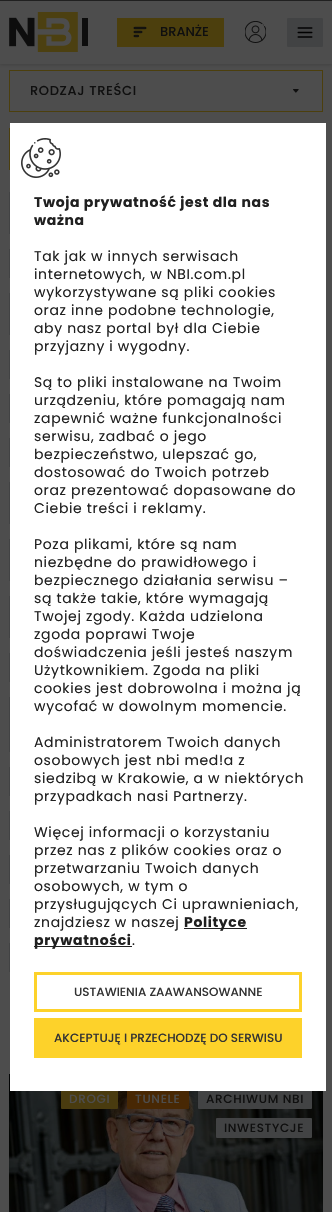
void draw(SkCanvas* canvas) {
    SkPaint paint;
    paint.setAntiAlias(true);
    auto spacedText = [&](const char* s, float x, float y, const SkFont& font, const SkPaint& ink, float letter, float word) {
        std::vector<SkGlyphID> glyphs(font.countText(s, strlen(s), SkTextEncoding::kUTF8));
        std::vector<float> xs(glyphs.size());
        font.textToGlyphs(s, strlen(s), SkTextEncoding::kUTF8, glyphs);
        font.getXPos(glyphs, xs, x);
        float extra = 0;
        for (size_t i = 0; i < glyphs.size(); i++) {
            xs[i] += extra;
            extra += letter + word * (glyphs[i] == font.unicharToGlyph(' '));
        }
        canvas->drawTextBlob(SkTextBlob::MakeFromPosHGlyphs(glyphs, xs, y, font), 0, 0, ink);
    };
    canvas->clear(0xFF4D4D4D);
    paint.setStyle(SkPaint::kStroke_Style);
    paint.setStrokeWidth(1);
    paint.setColor(0xFF4C3F0D);
    canvas->drawRect(SkRect::MakeXYWH(9.5f, 70.5f, 313, 41), paint);
    paint.setStyle(SkPaint::kFill_Style);
    paint.setColor(0x26000000);
    paint.setMaskFilter(SkMaskFilter::MakeBlur(kNormal_SkBlurStyle, 1.5f));
    canvas->drawRect(SkRect::MakeXYWH(0, 1, 332, 64), paint);
    paint.setMaskFilter(nullptr);
    paint.setColor(0xFF4D4D4D);
    canvas->drawRect(SkRect::MakeXYWH(0, 1, 332, 63), paint);
    canvas->drawImageRect(SkImages::DeferredFromEncodedData(SkData::MakeFromFileName("img1.png")), SkRect::MakeXYWH(9, 12, 79, 40), SkSamplingOptions());
    paint.setColor(0xFF4C3F0D);
    canvas->drawRect(SkRect::MakeXYWH(117, 18, 107, 29), paint);
    canvas->drawImageRect(SkImages::DeferredFromEncodedData(SkData::MakeFromFileName("img2.png")), SkRect::MakeXYWH(133, 26, 14, 12), SkSamplingOptions());
    SkFont font1(fontMgr->matchFamilyStyle("Poppins", SkFontStyle(500, SkFontStyle::kNormal_Width, SkFontStyle::kUpright_Slant)), 13);
    font1.setSubpixel(true);
    paint.setColor(0xFF0F0F0F);
    canvas->drawString("BRANŻE", 160, 36, font1, paint);
    canvas->drawImageRect(SkImages::DeferredFromEncodedData(SkData::MakeFromFileName("img3.png")), SkRect::MakeXYWH(245, 21, 21, 22), SkSamplingOptions());
    paint.setColor(0xFF424344);
    canvas->drawRoundRect(SkRect::MakeXYWH(287, 18, 36, 29), 1, 1, paint);
    canvas->drawImageRect(SkImages::DeferredFromEncodedData(SkData::MakeFromFileName("img4.png")), SkRect::MakeXYWH(297, 27, 16, 11), SkSamplingOptions());
    paint.setColor(0xFF0F0F0F);
    spacedText("RODZAJ TREŚCI", 30, 95, font1, paint, 0.65f, 0);
    canvas->drawImageRect(SkImages::DeferredFromEncodedData(SkData::MakeFromFileName("img5.png")), SkRect::MakeXYWH(293, 89, 6, 4), SkSamplingOptions());
    paint.setStyle(SkPaint::kStroke_Style);
    paint.setColor(0xFF4C3F0D);
    canvas->drawRect(SkRect::MakeXYWH(9.5f, 128.5f, 313, 41), paint);
    paint.setStyle(SkPaint::kFill_Style);
    paint.setColor(0xFF424344);
    canvas->drawRect(SkRect::MakeXYWH(9, 192, 1, 42), paint);
    canvas->drawRect(SkRect::MakeXYWH(9, 249, 1, 29), paint);
    canvas->drawRect(SkRect::MakeXYWH(9, 293, 1, 42), paint);
    canvas->drawRect(SkRect::MakeXYWH(9, 350, 1, 29), paint);
    canvas->drawRect(SkRect::MakeXYWH(9, 394, 1, 29), paint);
    canvas->drawRect(SkRect::MakeXYWH(9, 438, 1, 29), paint);
    canvas->drawRect(SkRect::MakeXYWH(9, 482, 1, 42), paint);
    canvas->drawRect(SkRect::MakeXYWH(9, 539, 1, 42), paint);
    canvas->drawRect(SkRect::MakeXYWH(9, 596, 1, 42), paint);
    canvas->drawRect(SkRect::MakeXYWH(9, 653, 1, 29), paint);
    canvas->drawRect(SkRect::MakeXYWH(9, 697, 1, 55), paint);
    canvas->drawRect(SkRect::MakeXYWH(9, 767, 1, 29), paint);
    canvas->drawRect(SkRect::MakeXYWH(9, 811, 1, 29), paint);
    canvas->drawRect(SkRect::MakeXYWH(9, 855, 1, 29), paint);
    canvas->drawRect(SkRect::MakeXYWH(9, 899, 1, 29), paint);
    canvas->drawRect(SkRect::MakeXYWH(9, 943, 1, 29), paint);
    canvas->drawImageRect(SkImages::DeferredFromEncodedData(SkData::MakeFromFileName("img6.png")), SkRect::MakeXYWH(9, 1074, 314, 138), SkSamplingOptions());
    paint.setColor(0xFF493B0F);
    canvas->drawRoundRect(SkRect::MakeXYWH(61, 1089, 57, 20), 1, 1, paint);
    SkFont font2(fontMgr->matchFamilyStyle("Poppins", SkFontStyle(500, SkFontStyle::kNormal_Width, SkFontStyle::kUpright_Slant)), 12);
    font2.setSubpixel(true);
    paint.setColor(0xFF4D4D4D);
    spacedText("DROGI", 69, 1103, font2, paint, 0.65f, 0);
    paint.setColor(0xFF482804);
    canvas->drawRoundRect(SkRect::MakeXYWH(127, 1089, 62, 20), 1, 1, paint);
    paint.setColor(0xFF4D4D4D);
    spacedText("TUNELE", 135, 1103, font2, paint, 0.65f, 0);
    paint.setColor(0xFF424344);
    canvas->drawRoundRect(SkRect::MakeXYWH(198, 1089, 114, 20), 1, 1, paint);
    paint.setColor(0xFF0F0F0F);
    spacedText("ARCHIWUM NBI", 206, 1103, font2, paint, 0.65f, 0);
    paint.setColor(0xFF424344);
    canvas->drawRoundRect(SkRect::MakeXYWH(216, 1118, 96, 20), 1, 1, paint);
    paint.setColor(0xFF0F0F0F);
    spacedText("INWESTYCJE", 224, 1132, font2, paint, 0.65f, 0);
    paint.setColor(0xFF202020);
    canvas->drawRect(SkRect::MakeXYWH(0, 0, 332, 1), paint);
    paint.setColor(0xFFFFFFFF);
    canvas->drawRect(SkRect::MakeXYWH(10, 123, 316, 968), paint);
    canvas->drawImageRect(SkImages::DeferredFromEncodedData(SkData::MakeFromFileName("img7.png")), SkRect::MakeXYWH(21, 138, 40, 40), SkSamplingOptions());
    SkFont font3(fontMgr->matchFamilyStyle("Poppins", SkFontStyle::Bold()), 14);
    font3.setSubpixel(true);
    paint.setColor(0xFF202020);
    spacedText("Twoja prywatność jest dla nas", 34, 207, font3, paint, 0.65f, 0);
    spacedText("ważna", 34, 225, font3, paint, 0.65f, 0);
    SkFont font4(fontMgr->matchFamilyStyle("Poppins", SkFontStyle::Normal()), 14);
    font4.setSubpixel(true);
    spacedText("Tak jak w innych serwisach", 34, 261, font4, paint, 0.65f, 0);
    spacedText("internetowych, w NBI.com.pl", 34, 279, font4, paint, 0.65f, 0);
    spacedText("wykorzystywane są pliki cookies", 34, 297, font4, paint, 0.65f, 0);
    spacedText("oraz inne podobne technologie,", 34, 315, font4, paint, 0.65f, 0);
    spacedText("aby nasz portal był dla Ciebie", 34, 333, font4, paint, 0.65f, 0);
    spacedText("przyjazny i wygodny.", 34, 351, font4, paint, 0.65f, 0);
    spacedText("Są to pliki instalowane na Twoim", 34, 387, font4, paint, 0.65f, 0);
    spacedText("urządzeniu, które pomagają nam", 34, 405, font4, paint, 0.65f, 0);
    spacedText("zapewnić ważne funkcjonalności", 34, 423, font4, paint, 0.65f, 0);
    spacedText("serwisu, zadbać o jego", 34, 441, font4, paint, 0.65f, 0);
    spacedText("bezpieczeństwo, ulepszać go,", 34, 459, font4, paint, 0.65f, 0);
    spacedText("dostosować do Twoich potrzeb", 34, 477, font4, paint, 0.65f, 0);
    spacedText("oraz prezentować dopasowane do", 34, 495, font4, paint, 0.65f, 0);
    spacedText("Ciebie treści i reklamy.", 34, 513, font4, paint, 0.65f, 0);
    spacedText("Poza plikami, które są nam", 34, 549, font4, paint, 0.65f, 0);
    spacedText("niezbędne do prawidłowego i", 34, 567, font4, paint, 0.65f, 0);
    spacedText("bezpiecznego działania serwisu –", 34, 585, font4, paint, 0.65f, 0);
    spacedText("są także takie, które wymagają", 34, 603, font4, paint, 0.65f, 0);
    spacedText("Twojej zgody. Każda udzielona", 34, 621, font4, paint, 0.65f, 0);
    spacedText("zgoda poprawi Twoje", 34, 639, font4, paint, 0.65f, 0);
    spacedText("doświadczenia jeśli jesteś naszym", 34, 657, font4, paint, 0.65f, 0);
    spacedText("Użytkownikiem. Zgoda na pliki", 34, 675, font4, paint, 0.65f, 0);
    spacedText("cookies jest dobrowolna i można ją", 34, 693, font4, paint, 0.65f, 0);
    spacedText("wycofać w dowolnym momencie.", 34, 711, font4, paint, 0.65f, 0);
    spacedText("Administratorem Twoich danych", 34, 747, font4, paint, 0.65f, 0);
    spacedText("osobowych jest nbi med!a z", 34, 765, font4, paint, 0.65f, 0);
    spacedText("siedzibą w Krakowie, a w niektórych", 34, 783, font4, paint, 0.65f, 0);
    spacedText("przypadkach nasi Partnerzy.", 34, 801, font4, paint, 0.65f, 0);
    spacedText("Więcej informacji o korzystaniu", 34, 837, font4, paint, 0.65f, 0);
    spacedText("przez nas z plików cookies oraz o", 34, 855, font4, paint, 0.65f, 0);
    spacedText("przetwarzaniu Twoich danych", 34, 873, font4, paint, 0.65f, 0);
    spacedText("osobowych, w tym o", 34, 891, font4, paint, 0.65f, 0);
    spacedText("przysługujących Ci uprawnieniach,", 34, 909, font4, paint, 0.65f, 0);
    spacedText("znajdziesz w naszej", 34, 927, font4, paint, 0.65f, 0);
    canvas->drawRect(SkRect::MakeXYWH(184, 928, 63, 1), paint);
    spacedText("Polityce", 184, 927, font3, paint, 0.65f, 0);
    canvas->drawRect(SkRect::MakeXYWH(34, 946, 98, 1), paint);
    spacedText("prywatności", 34, 945, font3, paint, 0.65f, 0);
    spacedText(".", 132, 945, font4, paint, 0.65f, 0);
    paint.setStyle(SkPaint::kStroke_Style);
    paint.setStrokeWidth(3);
    paint.setColor(0xFFFDD22A);
    canvas->drawRect(SkRect::MakeXYWH(35.5f, 973.5f, 265, 37), paint);
    paint.setStyle(SkPaint::kFill_Style);
    paint.setColor(0xFF333333);
    canvas->drawString("USTAWIENIA ZAAWANSOWANNE", 74, 996, font2, paint);
    paint.setColor(0xFFFDD22A);
    canvas->drawRect(SkRect::MakeXYWH(34, 1018, 268, 40), paint);
    paint.setColor(0xFF333333);
    canvas->drawString("AKCEPTUJĘ I PRZECHODZĘ DO SERWISU", 54, 1042, font2, paint);
}
